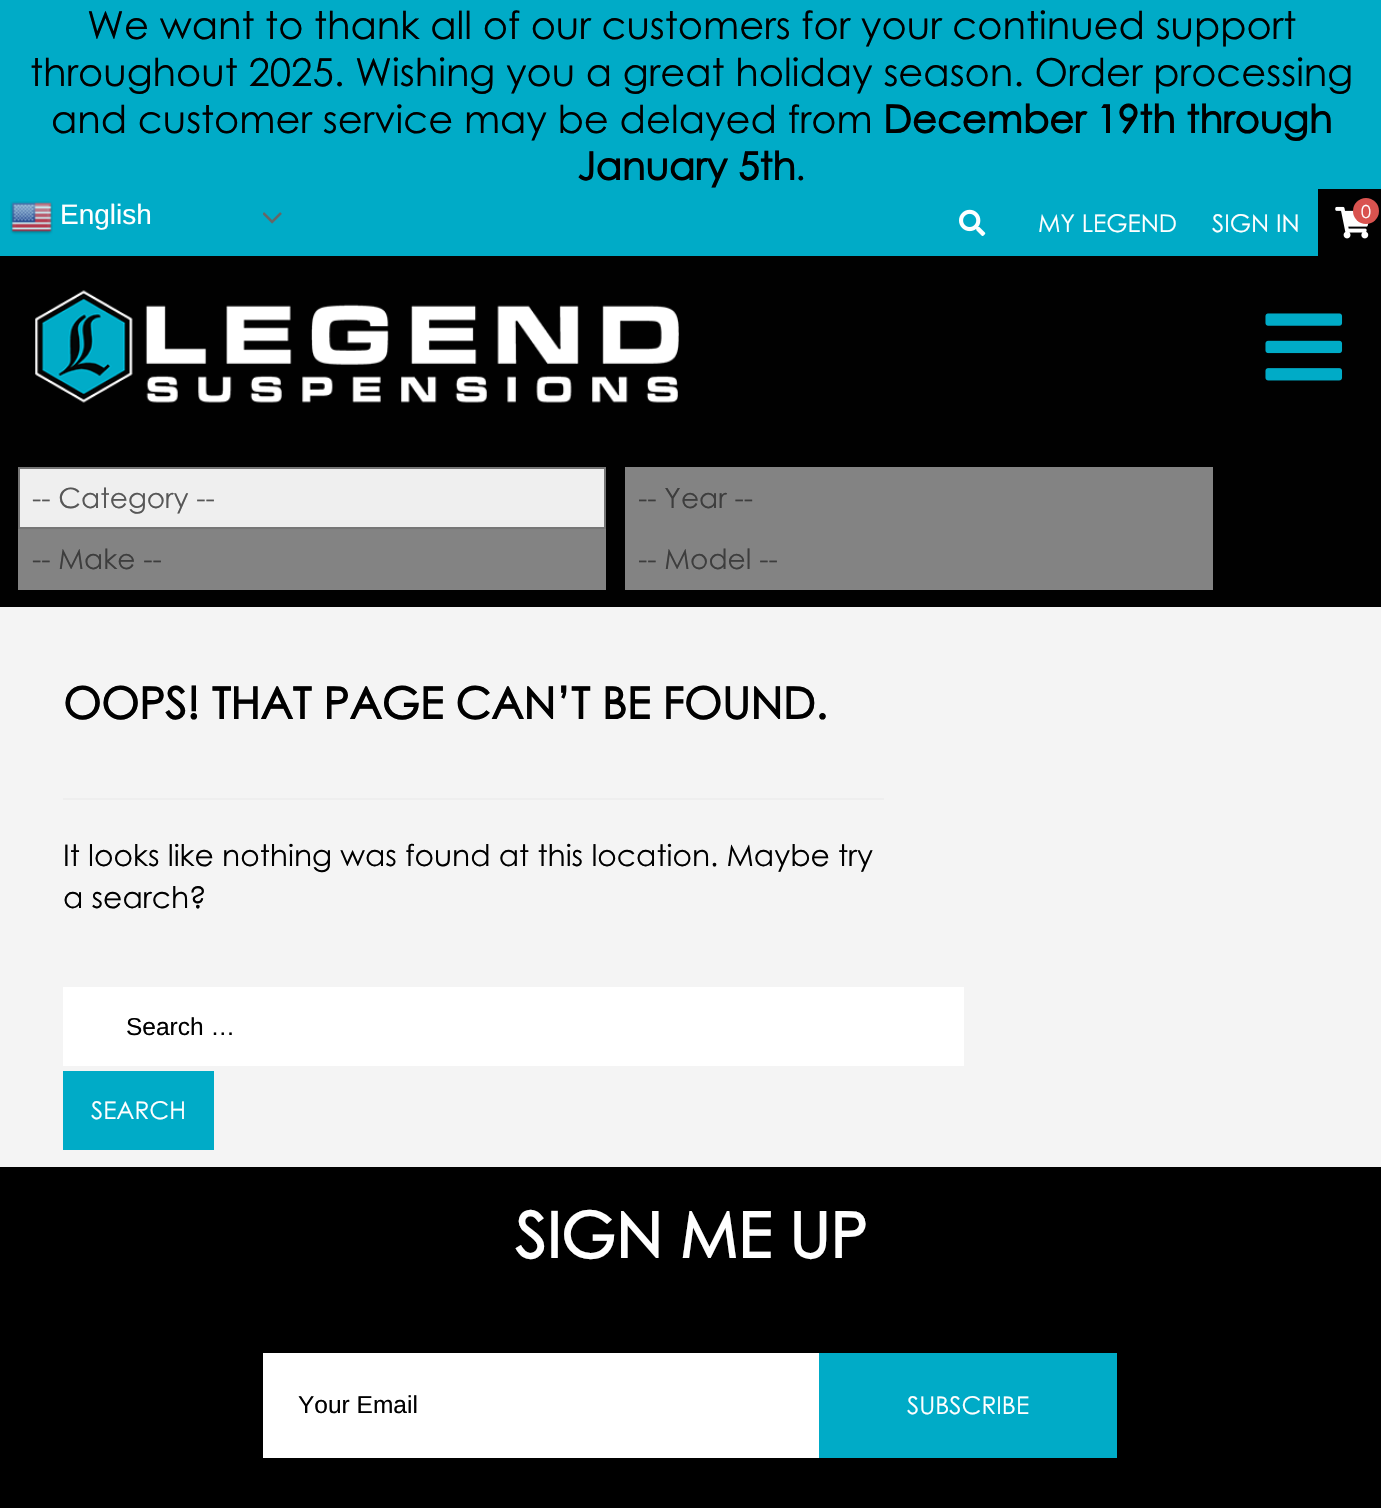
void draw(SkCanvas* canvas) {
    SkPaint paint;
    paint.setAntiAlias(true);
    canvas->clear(0xFFF4F4F4);
    paint.setColor(0xFF00ABC7);
    canvas->drawRect(SkRect::MakeXYWH(0, 0, 1381, 189), paint);
    SkFont font1(fontMgr->matchFamilyStyle("Century Gothic", SkFontStyle::Normal()), 38.5f);
    font1.setSubpixel(true);
    paint.setColor(0xFF000000);
    canvas->drawString("We want to thank all of our customers for your continued support", 87, 39, font1, paint);
    canvas->drawString("throughout 2025. Wishing you a great holiday season. Order processing", 30, 86, font1, paint);
    canvas->drawString("and customer service may be delayed from", 51, 133, font1, paint);
    SkFont font2(fontMgr->matchFamilyStyle("Century Gothic", SkFontStyle::Bold()), 38.5f);
    font2.setSubpixel(true);
    canvas->drawString("December 19th through", 883, 133, font2, paint);
    canvas->drawString("January 5th", 577, 180, font2, paint);
    canvas->drawString(".", 795, 180, font1, paint);
    paint.setColor(0xFF00ABC7);
    canvas->drawRect(SkRect::MakeXYWH(0, 189, 1318, 67), paint);
    canvas->drawImageRect(SkImages::DeferredFromEncodedData(SkData::MakeFromFileName("img1.png")), SkRect::MakeXYWH(10, 201, 43, 34), SkSamplingOptions());
    SkFont font3(fontMgr->matchFamilyStyle("Liberation Sans", SkFontStyle::Normal()), 28);
    font3.setSubpixel(true);
    paint.setColor(0xFFFFFFFF);
    canvas->drawString("English", 60, 224, font3, paint);
    canvas->drawImageRect(SkImages::DeferredFromEncodedData(SkData::MakeFromFileName("img2.png")), SkRect::MakeXYWH(263, 212, 19, 12), SkSamplingOptions());
    canvas->drawImageRect(SkImages::DeferredFromEncodedData(SkData::MakeFromFileName("img3.png")), SkRect::MakeXYWH(959, 209, 27, 27), SkSamplingOptions());
    SkFont font4(fontMgr->matchFamilyStyle("Century Gothic", SkFontStyle::Normal()), 24.5f);
    font4.setSubpixel(true);
    canvas->drawString("MY LEGEND", 1038, 232, font4, paint);
    canvas->drawString("SIGN IN", 1212, 232, font4, paint);
    paint.setColor(0xFF010101);
    canvas->drawRect(SkRect::MakeXYWH(1318, 189, 63, 67), paint);
    canvas->drawImageRect(SkImages::DeferredFromEncodedData(SkData::MakeFromFileName("img4.png")), SkRect::MakeXYWH(1335, 206, 34, 33), SkSamplingOptions());
    paint.setColor(0xFFD9534F);
    canvas->drawCircle(1366, 211, 13, paint);
    SkFont font5(fontMgr->matchFamilyStyle("Century Gothic", SkFontStyle::Normal()), 18);
    font5.setSubpixel(true);
    paint.setColor(0xFFFFFFFF);
    canvas->drawString("0", 1361, 218, font5, paint);
    paint.setColor(0xFF010101);
    canvas->drawRect(SkRect::MakeXYWH(0, 256, 1381, 351), paint);
    canvas->drawImageRect(SkImages::DeferredFromEncodedData(SkData::MakeFromFileName("img5.png")), SkRect::MakeXYWH(35, 290, 644, 113), SkSamplingOptions());
    canvas->drawImageRect(SkImages::DeferredFromEncodedData(SkData::MakeFromFileName("img6.png")), SkRect::MakeXYWH(1265, 313, 78, 68), SkSamplingOptions());
    paint.setColor(0xFFEFEFEF);
    canvas->drawRect(SkRect::MakeXYWH(19, 468, 586, 60), paint);
    paint.setStyle(SkPaint::kStroke_Style);
    paint.setStrokeWidth(2);
    paint.setColor(0xFF767676);
    canvas->drawRect(SkRect::MakeXYWH(19, 468, 586, 60), paint);
    SkFont font6(fontMgr->matchFamilyStyle("Century Gothic", SkFontStyle::Normal()), 28);
    font6.setSubpixel(true);
    paint.setStyle(SkPaint::kFill_Style);
    paint.setColor(0xFF575757);
    canvas->drawString("-- Category --", 32, 508, font6, paint);
    paint.setColor(0xFF838383);
    canvas->drawRect(SkRect::MakeXYWH(625, 467, 588, 123), paint);
    canvas->save();
    canvas->clipRect(SkRect::MakeXYWH(639, 480, 572, 35));
    paint.setColor(0xFF3D3D3D);
    canvas->drawString("-- Year --", 638, 508, font6, paint);
    canvas->restore();
    paint.setColor(0xFF838383);
    canvas->drawRect(SkRect::MakeXYWH(18, 529, 588, 61), paint);
    paint.setColor(0xFF3D3D3D);
    canvas->drawString("-- Make --", 32, 569, font6, paint);
    canvas->save();
    canvas->clipRect(SkRect::MakeXYWH(639, 541, 572, 35));
    canvas->drawString("-- Model --", 638, 569, font6, paint);
    canvas->restore();
    paint.setColor(0xFFEEEEEE);
    canvas->drawRect(SkRect::MakeXYWH(63, 798, 821, 2), paint);
    SkFont font7(fontMgr->matchFamilyStyle("Century Gothic", SkFontStyle::Bold()), 43.75f);
    font7.setSubpixel(true);
    paint.setColor(0xFF000000);
    canvas->drawString("OOPS! THAT PAGE CAN’T BE FOUND.", 63, 719, font7, paint);
    SkFont font8(fontMgr->matchFamilyStyle("Century Gothic", SkFontStyle::Normal()), 29.75f);
    font8.setSubpixel(true);
    canvas->drawString("It looks like nothing was found at this location. Maybe try", 63, 866, font8, paint);
    canvas->drawString("a search?", 63, 908, font8, paint);
    paint.setColor(0xFFFFFFFF);
    canvas->drawRect(SkRect::MakeXYWH(63, 987, 901, 79), paint);
    SkFont font9(fontMgr->matchFamilyStyle("Liberation Sans", SkFontStyle::Normal()), 24.5f);
    font9.setSubpixel(true);
    paint.setColor(0xFF000000);
    canvas->drawString("Search …", 126, 1035, font9, paint);
    paint.setColor(0xFF00ABC7);
    canvas->drawRect(SkRect::MakeXYWH(63, 1071, 151, 79), paint);
    paint.setColor(0xFFFFFFFF);
    canvas->drawString("SEARCH", 91, 1119, font4, paint);
    paint.setColor(0xFF000000);
    canvas->drawRect(SkRect::MakeXYWH(0, 1167, 1381, 341), paint);
    SkFont font10(fontMgr->matchFamilyStyle("Century Gothic", SkFontStyle::Bold()), 63);
    font10.setSubpixel(true);
    paint.setColor(0xFFFFFFFF);
    canvas->drawString("SIGN ME UP", 515, 1258, font10, paint);
    canvas->drawRect(SkRect::MakeXYWH(263, 1353, 556, 105), paint);
    paint.setColor(0xFF000000);
    canvas->drawString("Your Email", 298, 1413, font9, paint);
    paint.setColor(0xFF00ABC7);
    canvas->drawRect(SkRect::MakeXYWH(819, 1353, 298, 105), paint);
    paint.setColor(0xFFFFFFFF);
    canvas->drawString("SUBSCRIBE", 907, 1414, font4, paint);
}
